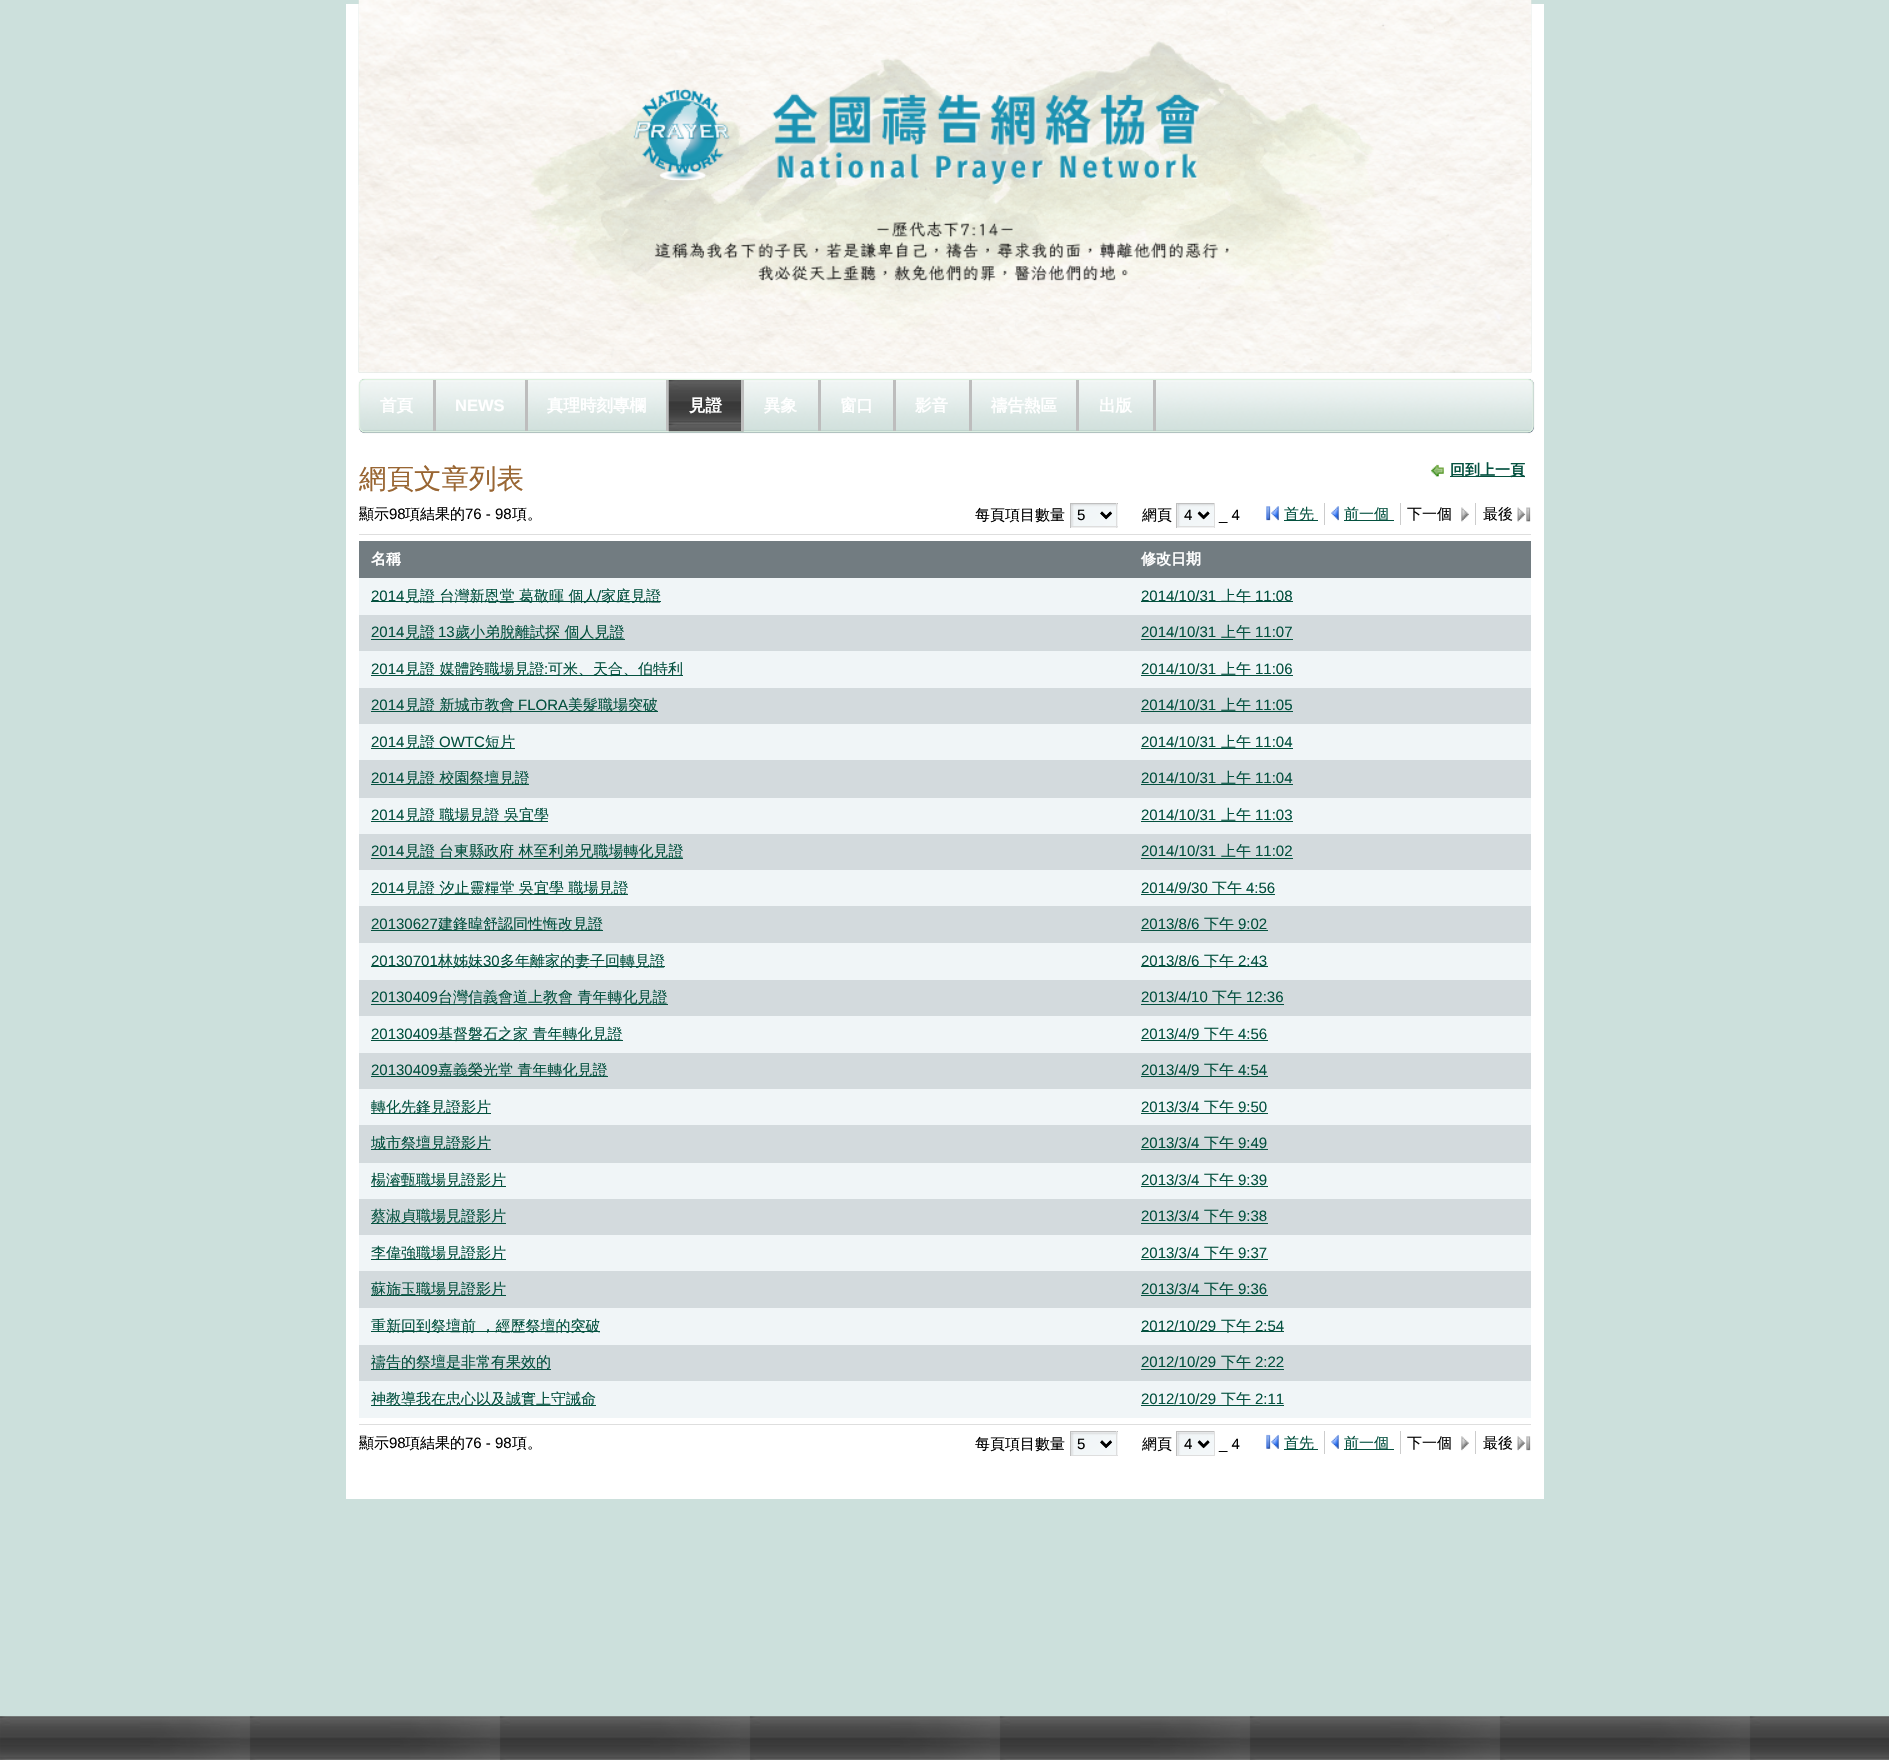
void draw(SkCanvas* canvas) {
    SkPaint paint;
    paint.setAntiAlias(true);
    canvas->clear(0xFFCCE0DC);
    canvas->drawImageRect(SkImages::DeferredFromEncodedData(SkData::MakeFromFileName("img1.png")), SkRect::MakeXYWH(0, 1716, 1889, 44), SkSamplingOptions());
    paint.setColor(0xFFFFFFFF);
    canvas->drawRect(SkRect::MakeXYWH(346, 4, 1198, 1495), paint);
    canvas->drawImageRect(SkImages::DeferredFromEncodedData(SkData::MakeFromFileName("img2.png")), SkRect::MakeXYWH(358, 0, 1174, 373), SkSamplingOptions());
    canvas->drawImageRect(SkImages::DeferredFromEncodedData(SkData::MakeFromFileName("img3.png")), SkRect::MakeXYWH(358, 0, 1174, 373), SkSamplingOptions());
    paint.setColor(0xFFCCCCCC);
    paint.setMaskFilter(SkMaskFilter::MakeBlur(kNormal_SkBlurStyle, 0.5f));
    canvas->drawRoundRect(SkRect::MakeXYWH(359, 379, 1175, 54), 6, 6, paint);
    paint.setMaskFilter(nullptr);
    paint.setColor(0xFF667788);
    canvas->drawRoundRect(SkRect::MakeXYWH(359, 379, 1175, 54), 6, 6, paint);
    canvas->drawImageRect(SkImages::DeferredFromEncodedData(SkData::MakeFromFileName("img4.png")), SkRect::MakeXYWH(359, 379, 1175, 54), SkSamplingOptions());
    paint.setStyle(SkPaint::kStroke_Style);
    paint.setStrokeWidth(1.2f);
    paint.setColor(0xFFDBF2DE);
    canvas->drawPath(SkPathBuilder().moveTo(361, 381).cubicTo(362, 380, 363.5f, 379.5f, 365, 379.5f).lineTo(1527.5f, 379.5f).cubicTo(1529, 379.5f, 1530.5f, 380, 1531.5f, 381).detach(), paint);
    paint.setColor(0xFFDEEFE2);
    canvas->drawPath(SkPathBuilder().moveTo(1531.5f, 381).cubicTo(1532.5f, 382, 1533, 383.5f, 1533, 385).lineTo(1533, 426).cubicTo(1533, 427.5f, 1532.5f, 429, 1531.5f, 430).detach(), paint);
    paint.setColor(0xFFDBF2DE);
    canvas->drawPath(SkPathBuilder().moveTo(1531.5f, 430).cubicTo(1530.5f, 431.5f, 1529, 432, 1527.5f, 432).lineTo(365, 432).cubicTo(363.5f, 432, 362, 431.5f, 361, 430).detach(), paint);
    paint.setColor(0xFFDEEFE2);
    canvas->drawPath(SkPathBuilder().moveTo(361, 430).cubicTo(360, 429, 359.5f, 427.5f, 359.5f, 426).lineTo(359.5f, 385).cubicTo(359.5f, 383.5f, 360, 382, 361, 381).detach(), paint);
    paint.setStyle(SkPaint::kFill_Style);
    paint.setColor(0xFFBDBDBD);
    canvas->drawRect(SkRect::MakeXYWH(433, 380, 3, 51), paint);
    SkFont font1(fontMgr->matchFamilyStyle("WenQuanYi Zen Hei", SkFontStyle::Bold()), 16.5f);
    font1.setSubpixel(true);
    paint.setColor(0xFFFFFFFF);
    canvas->drawString("首頁", 380, 411, font1, paint);
    paint.setColor(0xFFBDBDBD);
    canvas->drawRect(SkRect::MakeXYWH(525, 380, 3, 51), paint);
    SkFont font2(fontMgr->matchFamilyStyle("Liberation Sans", SkFontStyle::Bold()), 16.5f);
    font2.setSubpixel(true);
    paint.setColor(0xFFFFFFFF);
    canvas->drawString("NEWS", 455, 411, font2, paint);
    paint.setColor(0xFFBDBDBD);
    canvas->drawRect(SkRect::MakeXYWH(666, 380, 3, 51), paint);
    paint.setColor(0xFFFFFFFF);
    canvas->drawString("真理時刻專欄", 547, 411, font1, paint);
    canvas->drawImageRect(SkImages::DeferredFromEncodedData(SkData::MakeFromFileName("img5.png")), SkRect::MakeXYWH(668, 380, 76, 52), SkSamplingOptions());
    paint.setColor(0xFFBDBDBD);
    canvas->drawRect(SkRect::MakeXYWH(741, 380, 3, 51), paint);
    paint.setColor(0xFFFFFFFF);
    canvas->drawString("見證", 689, 411, font1, paint);
    paint.setColor(0xFFBDBDBD);
    canvas->drawRect(SkRect::MakeXYWH(818, 380, 3, 51), paint);
    paint.setColor(0xFFFFFFFF);
    canvas->drawString("異象", 764, 411, font1, paint);
    paint.setColor(0xFFBDBDBD);
    canvas->drawRect(SkRect::MakeXYWH(893, 380, 3, 51), paint);
    paint.setColor(0xFFFFFFFF);
    canvas->drawString("窗口", 840, 411, font1, paint);
    paint.setColor(0xFFBDBDBD);
    canvas->drawRect(SkRect::MakeXYWH(969, 380, 3, 51), paint);
    paint.setColor(0xFFFFFFFF);
    canvas->drawString("影音", 915, 411, font1, paint);
    paint.setColor(0xFFBDBDBD);
    canvas->drawRect(SkRect::MakeXYWH(1076, 380, 3, 51), paint);
    paint.setColor(0xFFFFFFFF);
    canvas->drawString("禱告熱區", 991, 411, font1, paint);
    paint.setColor(0xFFBDBDBD);
    canvas->drawRect(SkRect::MakeXYWH(1153, 380, 3, 51), paint);
    paint.setColor(0xFFFFFFFF);
    canvas->drawString("出版", 1099, 411, font1, paint);
    SkFont font3(fontMgr->matchFamilyStyle("WenQuanYi Zen Hei", SkFontStyle(500, SkFontStyle::kNormal_Width, SkFontStyle::kUpright_Slant)), 27.5f);
    font3.setSubpixel(true);
    paint.setColor(0xFF996633);
    canvas->drawString("網頁文章列表", 359, 488, font3, paint);
    canvas->drawImageRect(SkImages::DeferredFromEncodedData(SkData::MakeFromFileName("img6.png")), SkRect::MakeXYWH(1431, 464, 13, 13), SkSamplingOptions());
    paint.setColor(0xFF04513F);
    canvas->drawRect(SkRect::MakeXYWH(1450, 476, 75, 1), paint);
    SkFont font4(fontMgr->matchFamilyStyle("WenQuanYi Zen Hei", SkFontStyle::Bold()), 15);
    font4.setSubpixel(true);
    canvas->drawString("回到上一頁", 1450, 475, font4, paint);
    SkFont font5(fontMgr->matchFamilyStyle("WenQuanYi Zen Hei", SkFontStyle(500, SkFontStyle::kNormal_Width, SkFontStyle::kUpright_Slant)), 15);
    font5.setSubpixel(true);
    paint.setColor(0xFF000000);
    canvas->drawString("顯示", 359, 519, font5, paint);
    SkFont font6(fontMgr->matchFamilyStyle("Liberation Sans", SkFontStyle::Normal()), 15);
    font6.setSubpixel(true);
    canvas->drawString("98", 389, 519, font6, paint);
    canvas->drawString("項結果的", 405, 519, font5, paint);
    canvas->drawString("76 - 98", 465, 519, font6, paint);
    canvas->drawString("項。", 512, 519, font5, paint);
    canvas->drawString("每頁項目數量", 975, 520, font5, paint);
    paint.setColor(0xFFEFEFEF);
    canvas->drawRect(SkRect::MakeXYWH(1071, 504, 47, 24), paint);
    canvas->drawImageRect(SkImages::DeferredFromEncodedData(SkData::MakeFromFileName("img7.png")), SkRect::MakeXYWH(1071, 504, 47, 22), SkSamplingOptions());
    paint.setColor(0xFFBFBFBF);
    canvas->drawRect(SkRect::MakeXYWH(1070, 503, 48, 1), paint);
    paint.setColor(0xFFDEDEDE);
    canvas->drawRect(SkRect::MakeXYWH(1116, 503, 1, 25), paint);
    canvas->drawRect(SkRect::MakeXYWH(1070, 526, 48, 1), paint);
    paint.setColor(0xFFBFBFBF);
    canvas->drawRect(SkRect::MakeXYWH(1070, 503, 1, 25), paint);
    paint.setStyle(SkPaint::kStroke_Style);
    paint.setStrokeWidth(2.5f);
    paint.setColor(0xFF000000);
    canvas->drawPath(SkPathBuilder().moveTo(1101, 512.5f).lineTo(1106, 517.5f).lineTo(1111, 512.5f).detach(), paint);
    paint.setStyle(SkPaint::kFill_Style);
    canvas->drawString("5", 1077, 520, font6, paint);
    canvas->drawString("網頁", 1142, 520, font5, paint);
    paint.setColor(0xFFEFEFEF);
    canvas->drawRect(SkRect::MakeXYWH(1177, 504, 37, 24), paint);
    canvas->drawImageRect(SkImages::DeferredFromEncodedData(SkData::MakeFromFileName("img8.png")), SkRect::MakeXYWH(1177, 504, 37, 24), SkSamplingOptions());
    paint.setColor(0xFFBFBFBF);
    canvas->drawRect(SkRect::MakeXYWH(1176, 503, 39, 1), paint);
    paint.setColor(0xFFDEDEDE);
    canvas->drawRect(SkRect::MakeXYWH(1214, 503, 1, 25), paint);
    canvas->drawRect(SkRect::MakeXYWH(1176, 526, 39, 1), paint);
    paint.setColor(0xFFBFBFBF);
    canvas->drawRect(SkRect::MakeXYWH(1176, 503, 1, 25), paint);
    paint.setStyle(SkPaint::kStroke_Style);
    paint.setColor(0xFF000000);
    canvas->drawPath(SkPathBuilder().moveTo(1198.5f, 512.5f).lineTo(1203.5f, 517.5f).lineTo(1208.5f, 512.5f).detach(), paint);
    paint.setStyle(SkPaint::kFill_Style);
    canvas->drawString("4", 1184, 520, font6, paint);
    canvas->drawString("_ 4", 1219, 520, font6, paint);
    canvas->drawImageRect(SkImages::DeferredFromEncodedData(SkData::MakeFromFileName("img9.png")), SkRect::MakeXYWH(1266, 506, 13, 15), SkSamplingOptions());
    paint.setColor(0xFF04513F);
    canvas->drawRect(SkRect::MakeXYWH(1284, 520, 34, 1), paint);
    canvas->drawString("首先", 1284, 519, font5, paint);
    canvas->drawImageRect(SkImages::DeferredFromEncodedData(SkData::MakeFromFileName("img10.png")), SkRect::MakeXYWH(1331, 506, 8, 15), SkSamplingOptions());
    canvas->drawRect(SkRect::MakeXYWH(1344, 520, 50, 1), paint);
    canvas->drawString("前一個", 1344, 519, font5, paint);
    paint.setColor(0xFFCCCCCC);
    canvas->drawRect(SkRect::MakeXYWH(1324, 503, 1, 22), paint);
    paint.setColor(0xFF000000);
    canvas->drawString("下一個", 1407, 519, font5, paint);
    paint.setColor(0xFFCCCCCC);
    canvas->drawRect(SkRect::MakeXYWH(1400, 503, 1, 22), paint);
    canvas->drawImageRect(SkImages::DeferredFromEncodedData(SkData::MakeFromFileName("img11.png")), SkRect::MakeXYWH(1461, 507, 8, 15), SkSamplingOptions());
    paint.setColor(0xFF000000);
    canvas->drawString("最後", 1483, 519, font5, paint);
    paint.setColor(0xFFCCCCCC);
    canvas->drawRect(SkRect::MakeXYWH(1475, 503, 1, 22), paint);
    canvas->drawImageRect(SkImages::DeferredFromEncodedData(SkData::MakeFromFileName("img12.png")), SkRect::MakeXYWH(1517, 507, 14, 15), SkSamplingOptions());
    paint.setColor(0xFFDEDEDE);
    canvas->drawRect(SkRect::MakeXYWH(359, 534, 1172, 1), paint);
    canvas->drawRect(SkRect::MakeXYWH(359, 1424, 1172, 1), paint);
    paint.setColor(0xFF727C81);
    canvas->drawRect(SkRect::MakeXYWH(359, 541, 1172, 37), paint);
    paint.setColor(0xFFFFFFFF);
    canvas->drawString("名稱", 371, 564, font4, paint);
    canvas->drawString("修改日期", 1141, 564, font4, paint);
    paint.setColor(0xFFF0F5F7);
    canvas->drawRect(SkRect::MakeXYWH(359, 578, 1172, 37), paint);
    paint.setColor(0xFF04513F);
    canvas->drawRect(SkRect::MakeXYWH(371, 601, 290, 1), paint);
    canvas->drawString("2014", 371, 601, font6, paint);
    canvas->drawString("見證 台灣新恩堂 葛敬暉 個人", 405, 601, font5, paint);
    canvas->drawString("/", 597, 601, font6, paint);
    canvas->drawString("家庭見證", 601, 601, font5, paint);
    canvas->drawRect(SkRect::MakeXYWH(1141, 601, 152, 1), paint);
    canvas->drawString("2014/10/31", 1141, 601, font6, paint);
    canvas->drawString("上午", 1221, 601, font5, paint);
    canvas->drawString("11:08", 1255, 601, font6, paint);
    paint.setColor(0xFFD3DADD);
    canvas->drawRect(SkRect::MakeXYWH(359, 615, 1172, 36), paint);
    paint.setColor(0xFF04513F);
    canvas->drawString("2014", 371, 637, font6, paint);
    canvas->drawRect(SkRect::MakeXYWH(371, 639, 254, 1), paint);
    canvas->drawString("見證", 405, 637, font5, paint);
    canvas->drawString("13", 438, 637, font6, paint);
    canvas->drawString("歲小弟脫離試探 個人見證", 455, 637, font5, paint);
    canvas->drawString("2014/10/31", 1141, 637, font6, paint);
    canvas->drawRect(SkRect::MakeXYWH(1141, 639, 152, 1), paint);
    canvas->drawString("上午", 1221, 637, font5, paint);
    canvas->drawString("11:07", 1255, 637, font6, paint);
    paint.setColor(0xFFF0F5F7);
    canvas->drawRect(SkRect::MakeXYWH(359, 651, 1172, 37), paint);
    paint.setColor(0xFF04513F);
    canvas->drawString("2014", 371, 674, font6, paint);
    canvas->drawRect(SkRect::MakeXYWH(371, 675, 312, 1), paint);
    canvas->drawString("見證 媒體跨職場見證", 405, 674, font5, paint);
    canvas->drawString(":", 544, 674, font6, paint);
    canvas->drawString("可米、天合、伯特利", 548, 674, font5, paint);
    canvas->drawString("2014/10/31", 1141, 674, font6, paint);
    canvas->drawRect(SkRect::MakeXYWH(1141, 675, 152, 1), paint);
    canvas->drawString("上午", 1221, 674, font5, paint);
    canvas->drawString("11:06", 1255, 674, font6, paint);
    paint.setColor(0xFFD3DADD);
    canvas->drawRect(SkRect::MakeXYWH(359, 688, 1172, 36), paint);
    paint.setColor(0xFF04513F);
    canvas->drawString("2014", 371, 710, font6, paint);
    canvas->drawRect(SkRect::MakeXYWH(371, 711, 287, 1), paint);
    canvas->drawString("見證 新城市教會", 405, 710, font5, paint);
    canvas->drawString("FLORA", 518, 710, font6, paint);
    canvas->drawString("美髮職場突破", 568, 710, font5, paint);
    canvas->drawString("2014/10/31", 1141, 710, font6, paint);
    canvas->drawRect(SkRect::MakeXYWH(1141, 711, 152, 1), paint);
    canvas->drawString("上午", 1221, 710, font5, paint);
    canvas->drawString("11:05", 1255, 710, font6, paint);
    paint.setColor(0xFFF0F5F7);
    canvas->drawRect(SkRect::MakeXYWH(359, 724, 1172, 36), paint);
    paint.setColor(0xFF04513F);
    canvas->drawString("2014", 371, 747, font6, paint);
    canvas->drawRect(SkRect::MakeXYWH(371, 748, 144, 1), paint);
    canvas->drawString("見證", 405, 747, font5, paint);
    canvas->drawString("OWTC", 439, 747, font6, paint);
    canvas->drawString("短片", 485, 747, font5, paint);
    canvas->drawString("2014/10/31", 1141, 747, font6, paint);
    canvas->drawRect(SkRect::MakeXYWH(1141, 748, 152, 1), paint);
    canvas->drawString("上午", 1221, 747, font5, paint);
    canvas->drawString("11:04", 1255, 747, font6, paint);
    paint.setColor(0xFFD3DADD);
    canvas->drawRect(SkRect::MakeXYWH(359, 760, 1172, 38), paint);
    paint.setColor(0xFF04513F);
    canvas->drawString("2014", 371, 783, font6, paint);
    canvas->drawRect(SkRect::MakeXYWH(371, 784, 158, 1), paint);
    canvas->drawString("見證 校園祭壇見證", 405, 783, font5, paint);
    canvas->drawString("2014/10/31", 1141, 783, font6, paint);
    canvas->drawRect(SkRect::MakeXYWH(1141, 784, 152, 1), paint);
    canvas->drawString("上午", 1221, 783, font5, paint);
    canvas->drawString("11:04", 1255, 783, font6, paint);
    paint.setColor(0xFFF0F5F7);
    canvas->drawRect(SkRect::MakeXYWH(359, 798, 1172, 36), paint);
    paint.setColor(0xFF04513F);
    canvas->drawString("2014", 371, 820, font6, paint);
    canvas->drawRect(SkRect::MakeXYWH(371, 821, 177, 1), paint);
    canvas->drawString("見證 職場見證 吳宜學", 405, 820, font5, paint);
    canvas->drawString("2014/10/31", 1141, 820, font6, paint);
    canvas->drawRect(SkRect::MakeXYWH(1141, 821, 152, 1), paint);
    canvas->drawString("上午", 1221, 820, font5, paint);
    canvas->drawString("11:03", 1255, 820, font6, paint);
    paint.setColor(0xFFD3DADD);
    canvas->drawRect(SkRect::MakeXYWH(359, 834, 1172, 36), paint);
    paint.setColor(0xFF04513F);
    canvas->drawString("2014", 371, 856, font6, paint);
    canvas->drawRect(SkRect::MakeXYWH(371, 858, 312, 1), paint);
    canvas->drawString("見證", 405, 856, font5, paint);
    canvas->drawString("台東縣政府 林至利弟兄職場轉化見證", 439, 856, font5, paint);
    canvas->drawString("2014/10/31", 1141, 856, font6, paint);
    canvas->drawRect(SkRect::MakeXYWH(1141, 858, 152, 1), paint);
    canvas->drawString("上午", 1221, 856, font5, paint);
    canvas->drawString("11:02", 1255, 856, font6, paint);
    paint.setColor(0xFFF0F5F7);
    canvas->drawRect(SkRect::MakeXYWH(359, 870, 1172, 36), paint);
    paint.setColor(0xFF04513F);
    canvas->drawString("2014", 371, 893, font6, paint);
    canvas->drawRect(SkRect::MakeXYWH(371, 894, 257, 1), paint);
    canvas->drawString("見證 汐止靈糧堂 吳宜學 職場見證", 405, 893, font5, paint);
    canvas->drawString("2014/9/30", 1141, 893, font6, paint);
    canvas->drawRect(SkRect::MakeXYWH(1141, 894, 134, 1), paint);
    canvas->drawString("下午", 1212, 893, font5, paint);
    canvas->drawString("4:56", 1246, 893, font6, paint);
    paint.setColor(0xFFD3DADD);
    canvas->drawRect(SkRect::MakeXYWH(359, 906, 1172, 37), paint);
    paint.setColor(0xFF04513F);
    canvas->drawString("20130627", 371, 929, font6, paint);
    canvas->drawRect(SkRect::MakeXYWH(371, 930, 232, 1), paint);
    canvas->drawString("建鋒暐舒認同性悔改見證", 438, 929, font5, paint);
    canvas->drawString("2013/8/6", 1141, 929, font6, paint);
    canvas->drawRect(SkRect::MakeXYWH(1141, 930, 127, 1), paint);
    canvas->drawString("下午", 1204, 929, font5, paint);
    canvas->drawString("9:02", 1238, 929, font6, paint);
    paint.setColor(0xFFF0F5F7);
    canvas->drawRect(SkRect::MakeXYWH(359, 943, 1172, 37), paint);
    paint.setColor(0xFF04513F);
    canvas->drawRect(SkRect::MakeXYWH(371, 966, 294, 1), paint);
    canvas->drawString("20130701", 371, 966, font6, paint);
    canvas->drawString("林姊妹", 438, 966, font5, paint);
    canvas->drawString("30", 483, 966, font6, paint);
    canvas->drawString("多年離家的妻子回轉見證", 500, 966, font5, paint);
    canvas->drawRect(SkRect::MakeXYWH(1141, 966, 127, 1), paint);
    canvas->drawString("2013/8/6", 1141, 966, font6, paint);
    canvas->drawString("下午", 1204, 966, font5, paint);
    canvas->drawString("2:43", 1238, 966, font6, paint);
    paint.setColor(0xFFD3DADD);
    canvas->drawRect(SkRect::MakeXYWH(359, 980, 1172, 36), paint);
    paint.setColor(0xFF04513F);
    canvas->drawString("20130409", 371, 1002, font6, paint);
    canvas->drawRect(SkRect::MakeXYWH(371, 1004, 297, 1), paint);
    canvas->drawString("台灣信義會道上教會 青年轉化見證", 438, 1002, font5, paint);
    canvas->drawString("2013/4/10", 1141, 1002, font6, paint);
    canvas->drawRect(SkRect::MakeXYWH(1141, 1004, 143, 1), paint);
    canvas->drawString("下午", 1212, 1002, font5, paint);
    canvas->drawString("12:36", 1246, 1002, font6, paint);
    paint.setColor(0xFFF0F5F7);
    canvas->drawRect(SkRect::MakeXYWH(359, 1016, 1172, 37), paint);
    paint.setColor(0xFF04513F);
    canvas->drawString("20130409", 371, 1039, font6, paint);
    canvas->drawRect(SkRect::MakeXYWH(371, 1040, 252, 1), paint);
    canvas->drawString("基督磐石之家 青年轉化見證", 438, 1039, font5, paint);
    canvas->drawString("2013/4/9", 1141, 1039, font6, paint);
    canvas->drawRect(SkRect::MakeXYWH(1141, 1040, 127, 1), paint);
    canvas->drawString("下午", 1204, 1039, font5, paint);
    canvas->drawString("4:56", 1238, 1039, font6, paint);
    paint.setColor(0xFFD3DADD);
    canvas->drawRect(SkRect::MakeXYWH(359, 1053, 1172, 36), paint);
    paint.setColor(0xFF04513F);
    canvas->drawString("20130409", 371, 1075, font6, paint);
    canvas->drawRect(SkRect::MakeXYWH(371, 1076, 237, 1), paint);
    canvas->drawString("嘉義榮光堂 青年轉化見證", 438, 1075, font5, paint);
    canvas->drawString("2013/4/9", 1141, 1075, font6, paint);
    canvas->drawRect(SkRect::MakeXYWH(1141, 1076, 127, 1), paint);
    canvas->drawString("下午", 1204, 1075, font5, paint);
    canvas->drawString("4:54", 1238, 1075, font6, paint);
    paint.setColor(0xFFF0F5F7);
    canvas->drawRect(SkRect::MakeXYWH(359, 1089, 1172, 36), paint);
    paint.setColor(0xFF04513F);
    canvas->drawRect(SkRect::MakeXYWH(371, 1113, 120, 1), paint);
    canvas->drawString("轉化先鋒見證影片", 371, 1112, font5, paint);
    canvas->drawString("2013/3/4", 1141, 1112, font6, paint);
    canvas->drawRect(SkRect::MakeXYWH(1141, 1113, 127, 1), paint);
    canvas->drawString("下午", 1204, 1112, font5, paint);
    canvas->drawString("9:50", 1238, 1112, font6, paint);
    paint.setColor(0xFFD3DADD);
    canvas->drawRect(SkRect::MakeXYWH(359, 1125, 1172, 38), paint);
    paint.setColor(0xFF04513F);
    canvas->drawRect(SkRect::MakeXYWH(371, 1149, 120, 1), paint);
    canvas->drawString("城市祭壇見證影片", 371, 1148, font5, paint);
    canvas->drawString("2013/3/4", 1141, 1148, font6, paint);
    canvas->drawRect(SkRect::MakeXYWH(1141, 1149, 127, 1), paint);
    canvas->drawString("下午", 1204, 1148, font5, paint);
    canvas->drawString("9:49", 1238, 1148, font6, paint);
    paint.setColor(0xFFF0F5F7);
    canvas->drawRect(SkRect::MakeXYWH(359, 1163, 1172, 36), paint);
    paint.setColor(0xFF04513F);
    canvas->drawRect(SkRect::MakeXYWH(371, 1186, 135, 1), paint);
    canvas->drawString("楊濬甄職場見證影片", 371, 1185, font5, paint);
    canvas->drawString("2013/3/4", 1141, 1185, font6, paint);
    canvas->drawRect(SkRect::MakeXYWH(1141, 1186, 127, 1), paint);
    canvas->drawString("下午", 1204, 1185, font5, paint);
    canvas->drawString("9:39", 1238, 1185, font6, paint);
    paint.setColor(0xFFD3DADD);
    canvas->drawRect(SkRect::MakeXYWH(359, 1199, 1172, 36), paint);
    paint.setColor(0xFF04513F);
    canvas->drawRect(SkRect::MakeXYWH(371, 1223, 135, 1), paint);
    canvas->drawString("蔡淑貞職場見證影片", 371, 1221, font5, paint);
    canvas->drawString("2013/3/4", 1141, 1221, font6, paint);
    canvas->drawRect(SkRect::MakeXYWH(1141, 1223, 127, 1), paint);
    canvas->drawString("下午", 1204, 1221, font5, paint);
    canvas->drawString("9:38", 1238, 1221, font6, paint);
    paint.setColor(0xFFF0F5F7);
    canvas->drawRect(SkRect::MakeXYWH(359, 1235, 1172, 36), paint);
    paint.setColor(0xFF04513F);
    canvas->drawRect(SkRect::MakeXYWH(371, 1259, 135, 1), paint);
    canvas->drawString("李偉強職場見證影片", 371, 1258, font5, paint);
    canvas->drawString("2013/3/4", 1141, 1258, font6, paint);
    canvas->drawRect(SkRect::MakeXYWH(1141, 1259, 127, 1), paint);
    canvas->drawString("下午", 1204, 1258, font5, paint);
    canvas->drawString("9:37", 1238, 1258, font6, paint);
    paint.setColor(0xFFD3DADD);
    canvas->drawRect(SkRect::MakeXYWH(359, 1271, 1172, 37), paint);
    paint.setColor(0xFF04513F);
    canvas->drawRect(SkRect::MakeXYWH(371, 1295, 135, 1), paint);
    canvas->drawString("蘇旆玉職場見證影片", 371, 1294, font5, paint);
    canvas->drawString("2013/3/4", 1141, 1294, font6, paint);
    canvas->drawRect(SkRect::MakeXYWH(1141, 1295, 127, 1), paint);
    canvas->drawString("下午", 1204, 1294, font5, paint);
    canvas->drawString("9:36", 1238, 1294, font6, paint);
    paint.setColor(0xFFF0F5F7);
    canvas->drawRect(SkRect::MakeXYWH(359, 1308, 1172, 37), paint);
    paint.setColor(0xFF04513F);
    canvas->drawRect(SkRect::MakeXYWH(371, 1331, 229, 1), paint);
    canvas->drawString("重新回到祭壇前 ，經歷祭壇的突破", 371, 1331, font5, paint);
    canvas->drawRect(SkRect::MakeXYWH(1141, 1331, 143, 1), paint);
    canvas->drawString("2012/10/29", 1141, 1331, font6, paint);
    canvas->drawString("下午", 1221, 1331, font5, paint);
    canvas->drawString("2:54", 1255, 1331, font6, paint);
    paint.setColor(0xFFD3DADD);
    canvas->drawRect(SkRect::MakeXYWH(359, 1345, 1172, 36), paint);
    paint.setColor(0xFF04513F);
    canvas->drawRect(SkRect::MakeXYWH(371, 1369, 180, 1), paint);
    canvas->drawString("禱告的祭壇是非常有果效的", 371, 1367, font5, paint);
    canvas->drawString("2012/10/29", 1141, 1367, font6, paint);
    canvas->drawRect(SkRect::MakeXYWH(1141, 1369, 143, 1), paint);
    canvas->drawString("下午", 1221, 1367, font5, paint);
    canvas->drawString("2:22", 1255, 1367, font6, paint);
    paint.setColor(0xFFF0F5F7);
    canvas->drawRect(SkRect::MakeXYWH(359, 1381, 1172, 37), paint);
    paint.setColor(0xFF04513F);
    canvas->drawRect(SkRect::MakeXYWH(371, 1405, 225, 1), paint);
    canvas->drawString("神教導我在忠心以及誠實上守誡命", 371, 1404, font5, paint);
    canvas->drawString("2012/10/29", 1141, 1404, font6, paint);
    canvas->drawRect(SkRect::MakeXYWH(1141, 1405, 143, 1), paint);
    canvas->drawString("下午", 1221, 1404, font5, paint);
    canvas->drawString("2:11", 1255, 1404, font6, paint);
    paint.setColor(0xFF000000);
    canvas->drawString("顯示", 359, 1448, font5, paint);
    canvas->drawString("98", 389, 1448, font6, paint);
    canvas->drawString("項結果的", 405, 1448, font5, paint);
    canvas->drawString("76 - 98", 465, 1448, font6, paint);
    canvas->drawString("項。", 512, 1448, font5, paint);
    canvas->drawString("每頁項目數量", 975, 1449, font5, paint);
    paint.setColor(0xFFEFEFEF);
    canvas->drawRect(SkRect::MakeXYWH(1071, 1432, 47, 23), paint);
    canvas->drawImageRect(SkImages::DeferredFromEncodedData(SkData::MakeFromFileName("img13.png")), SkRect::MakeXYWH(1071, 1432, 47, 23), SkSamplingOptions());
    paint.setColor(0xFFBFBFBF);
    canvas->drawRect(SkRect::MakeXYWH(1070, 1431, 48, 1), paint);
    paint.setColor(0xFFDEDEDE);
    canvas->drawRect(SkRect::MakeXYWH(1116, 1431, 1, 25), paint);
    canvas->drawRect(SkRect::MakeXYWH(1070, 1455, 48, 1), paint);
    paint.setColor(0xFFBFBFBF);
    canvas->drawRect(SkRect::MakeXYWH(1070, 1431, 1, 25), paint);
    paint.setStyle(SkPaint::kStroke_Style);
    paint.setColor(0xFF000000);
    canvas->drawPath(SkPathBuilder().moveTo(1101, 1441.5f).lineTo(1106, 1446.5f).lineTo(1111, 1441.5f).detach(), paint);
    paint.setStyle(SkPaint::kFill_Style);
    canvas->drawString("5", 1077, 1449, font6, paint);
    canvas->drawString("網頁", 1142, 1449, font5, paint);
    paint.setColor(0xFFEFEFEF);
    canvas->drawRect(SkRect::MakeXYWH(1177, 1432, 37, 23), paint);
    canvas->drawImageRect(SkImages::DeferredFromEncodedData(SkData::MakeFromFileName("img14.png")), SkRect::MakeXYWH(1177, 1432, 37, 23), SkSamplingOptions());
    paint.setColor(0xFFBFBFBF);
    canvas->drawRect(SkRect::MakeXYWH(1176, 1431, 39, 1), paint);
    paint.setColor(0xFFDEDEDE);
    canvas->drawRect(SkRect::MakeXYWH(1214, 1431, 1, 25), paint);
    canvas->drawRect(SkRect::MakeXYWH(1176, 1455, 39, 1), paint);
    paint.setColor(0xFFBFBFBF);
    canvas->drawRect(SkRect::MakeXYWH(1176, 1431, 1, 25), paint);
    paint.setStyle(SkPaint::kStroke_Style);
    paint.setColor(0xFF000000);
    canvas->drawPath(SkPathBuilder().moveTo(1198.5f, 1441.5f).lineTo(1203.5f, 1446.5f).lineTo(1208.5f, 1441.5f).detach(), paint);
    paint.setStyle(SkPaint::kFill_Style);
    canvas->drawString("4", 1184, 1449, font6, paint);
    canvas->drawString("_ 4", 1219, 1449, font6, paint);
    canvas->drawImageRect(SkImages::DeferredFromEncodedData(SkData::MakeFromFileName("img15.png")), SkRect::MakeXYWH(1266, 1434, 13, 15), SkSamplingOptions());
    paint.setColor(0xFF04513F);
    canvas->drawRect(SkRect::MakeXYWH(1284, 1449, 34, 1), paint);
    canvas->drawString("首先", 1284, 1448, font5, paint);
    canvas->drawImageRect(SkImages::DeferredFromEncodedData(SkData::MakeFromFileName("img16.png")), SkRect::MakeXYWH(1331, 1434, 8, 15), SkSamplingOptions());
    canvas->drawRect(SkRect::MakeXYWH(1344, 1449, 50, 1), paint);
    canvas->drawString("前一個", 1344, 1448, font5, paint);
    paint.setColor(0xFFCCCCCC);
    canvas->drawRect(SkRect::MakeXYWH(1324, 1431, 1, 23), paint);
    paint.setColor(0xFF000000);
    canvas->drawString("下一個", 1407, 1448, font5, paint);
    paint.setColor(0xFFCCCCCC);
    canvas->drawRect(SkRect::MakeXYWH(1400, 1431, 1, 23), paint);
    canvas->drawImageRect(SkImages::DeferredFromEncodedData(SkData::MakeFromFileName("img17.png")), SkRect::MakeXYWH(1461, 1436, 8, 15), SkSamplingOptions());
    paint.setColor(0xFF000000);
    canvas->drawString("最後", 1483, 1448, font5, paint);
    paint.setColor(0xFFCCCCCC);
    canvas->drawRect(SkRect::MakeXYWH(1475, 1431, 1, 23), paint);
    canvas->drawImageRect(SkImages::DeferredFromEncodedData(SkData::MakeFromFileName("img18.png")), SkRect::MakeXYWH(1517, 1436, 14, 15), SkSamplingOptions());
}
